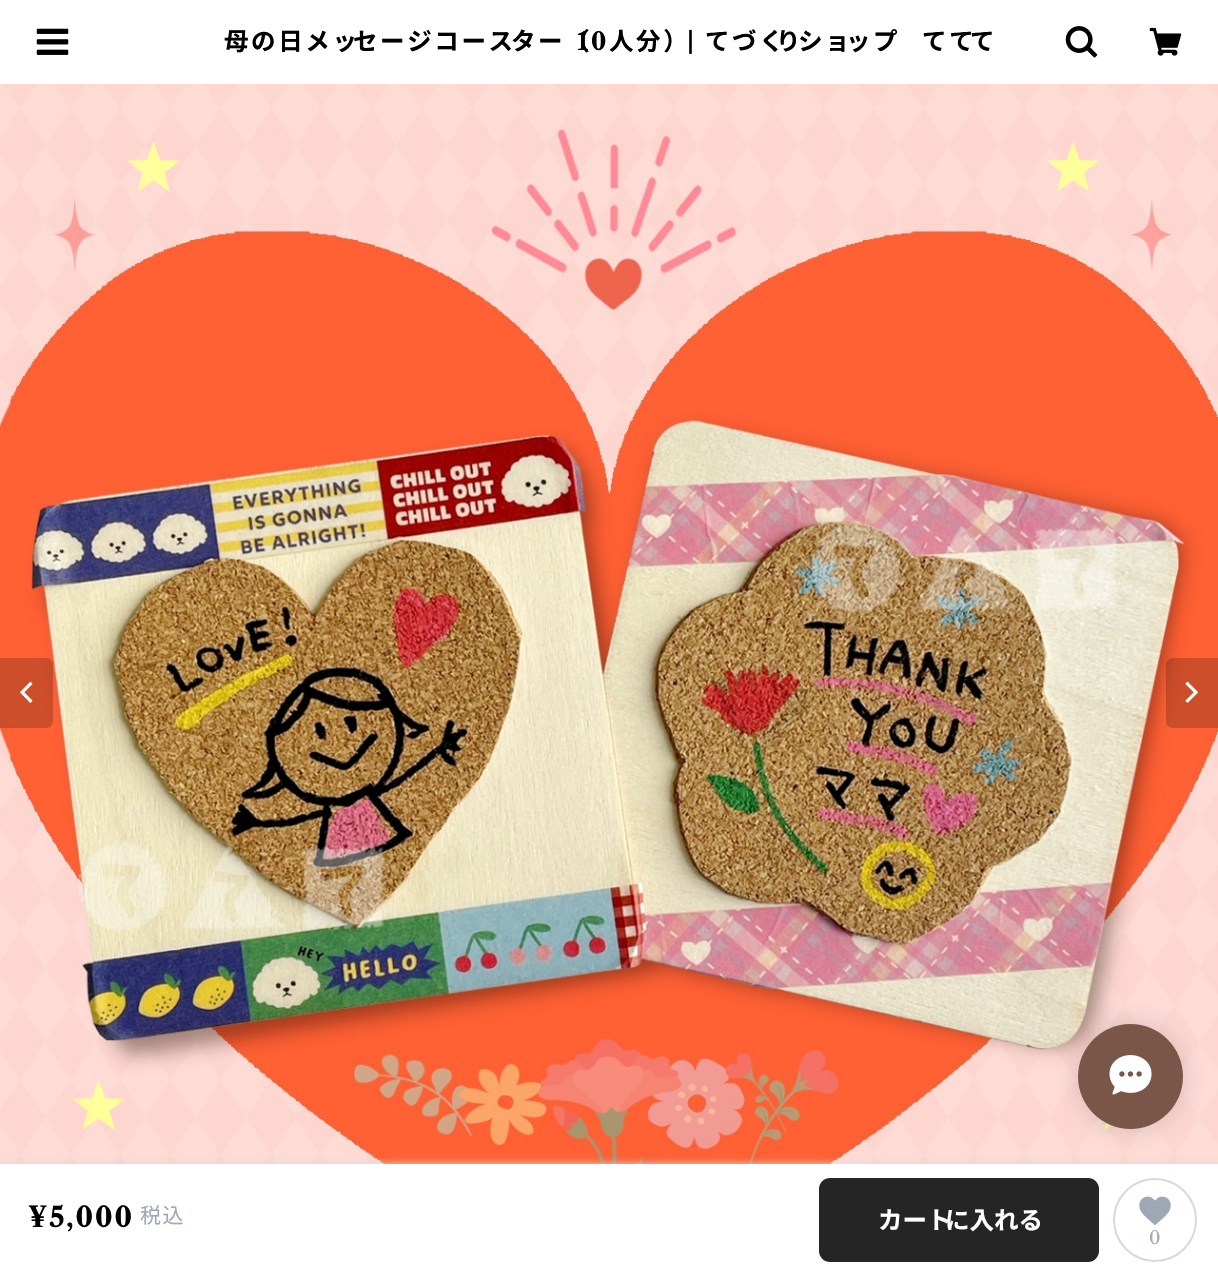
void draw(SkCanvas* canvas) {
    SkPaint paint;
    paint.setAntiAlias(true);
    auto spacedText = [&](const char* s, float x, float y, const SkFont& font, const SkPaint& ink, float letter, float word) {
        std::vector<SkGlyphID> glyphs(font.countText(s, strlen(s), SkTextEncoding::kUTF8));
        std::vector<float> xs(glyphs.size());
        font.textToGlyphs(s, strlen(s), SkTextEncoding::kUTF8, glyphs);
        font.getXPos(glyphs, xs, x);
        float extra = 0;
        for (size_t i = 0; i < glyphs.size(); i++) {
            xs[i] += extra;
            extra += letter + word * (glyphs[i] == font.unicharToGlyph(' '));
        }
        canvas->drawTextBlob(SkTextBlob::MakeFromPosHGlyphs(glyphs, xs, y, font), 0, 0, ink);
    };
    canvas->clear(0xFFFFFFFF);
    canvas->drawImageRect(SkImages::DeferredFromEncodedData(SkData::MakeFromFileName("img1.png")), SkRect::MakeXYWH(36, 28, 33, 27), SkSamplingOptions());
    SkFont font1(fontMgr->matchFamilyStyle("Noto Sans JP", SkFontStyle::Bold()), 24.5f);
    font1.setSubpixel(true);
    paint.setColor(0xFF000000);
    spacedText("母の日メッ", 224, 50, font1, paint, 2.6f, 0);
    spacedText("セージコース", 353, 50, font1, paint, 2.6f, 0);
    spacedText("ター（", 511, 50, font1, paint, 2.6f, 0);
    SkFont font2(fontMgr->matchFamilyStyle("Libre Caslon Text", SkFontStyle::Bold()), 24.5f);
    font2.setSubpixel(true);
    spacedText("10", 577, 50, font2, paint, 2.6f, 0);
    spacedText("人分）", 609, 50, font1, paint, 2.6f, 0);
    spacedText("|", 687, 50, font2, paint, 2.6f, 0);
    spacedText("てづく", 705, 50, font1, paint, 2.6f, 0);
    spacedText("り", 776, 50, font1, paint, 2.6f, 0);
    spacedText("ショ", 798, 50, font1, paint, 2.6f, 0);
    spacedText("ップ", 846, 50, font1, paint, 2.6f, 0);
    spacedText("　てて", 895, 50, font1, paint, 2.6f, 0);
    spacedText("て", 970, 50, font1, paint, 2.6f, 0);
    canvas->drawImageRect(SkImages::DeferredFromEncodedData(SkData::MakeFromFileName("img2.png")), SkRect::MakeXYWH(1065, 26, 33, 32), SkSamplingOptions());
    canvas->drawImageRect(SkImages::DeferredFromEncodedData(SkData::MakeFromFileName("img3.png")), SkRect::MakeXYWH(1149, 27, 33, 29), SkSamplingOptions());
    canvas->drawImageRect(SkImages::DeferredFromEncodedData(SkData::MakeFromFileName("img4.png")), SkRect::MakeXYWH(0, 84, 1218, 1080), SkSamplingOptions());
    paint.setColor(0x33000000);
    canvas->drawPath(SkPathBuilder().moveTo(0, 658).lineTo(46, 658).cubicTo(50, 658, 53, 661, 53, 665).lineTo(53, 721).cubicTo(53, 725, 50, 728, 46, 728).lineTo(0, 728).close().detach(), paint);
    canvas->drawImageRect(SkImages::DeferredFromEncodedData(SkData::MakeFromFileName("img5.png")), SkRect::MakeXYWH(20, 681, 13, 22), SkSamplingOptions());
    canvas->drawPath(SkPathBuilder().moveTo(1173, 658).lineTo(1218, 658).lineTo(1218, 728).lineTo(1173, 728).cubicTo(1169, 728, 1166, 725, 1166, 721).lineTo(1166, 665).cubicTo(1166, 661, 1169, 658, 1173, 658).close().detach(), paint);
    canvas->drawImageRect(SkImages::DeferredFromEncodedData(SkData::MakeFromFileName("img6.png")), SkRect::MakeXYWH(1185, 681, 13, 22), SkSamplingOptions());
    paint.setColor(0xFFDDDDDD);
    paint.setMaskFilter(SkMaskFilter::MakeBlur(kNormal_SkBlurStyle, 3.5f));
    canvas->drawRect(SkRect::MakeXYWH(0, 1164, 1218, 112), paint);
    paint.setMaskFilter(nullptr);
    paint.setColor(0xFFFFFFFF);
    canvas->drawRect(SkRect::MakeXYWH(0, 1164, 1218, 111), paint);
    paint.setColor(0x33334258);
    paint.setMaskFilter(SkMaskFilter::MakeBlur(kNormal_SkBlurStyle, 13));
    canvas->drawRoundRect(SkRect::MakeXYWH(1078, 1024, 105, 105), 52.5f, 52.5f, paint);
    paint.setMaskFilter(nullptr);
    paint.setColor(0xFF795648);
    canvas->drawCircle(1130.5f, 1076.5f, 52.5f, paint);
    canvas->drawImageRect(SkImages::DeferredFromEncodedData(SkData::MakeFromFileName("img7.png")), SkRect::MakeXYWH(1109, 1055, 43, 40), SkSamplingOptions());
    SkFont font3(fontMgr->matchFamilyStyle("Libre Caslon Text", SkFontStyle::Bold()), 28);
    font3.setSubpixel(true);
    paint.setColor(0xFF000000);
    spacedText("¥5,000", 28, 1227, font3, paint, 1.5f, 0);
    SkFont font4(fontMgr->matchFamilyStyle("Noto Sans JP", SkFontStyle::Normal()), 21);
    font4.setSubpixel(true);
    paint.setColor(0xFFA0A7B4);
    spacedText("税込", 140, 1223, font4, paint, 1.5f, 0);
    paint.setColor(0xFF252525);
    canvas->drawRoundRect(SkRect::MakeXYWH(819, 1178, 280, 84), 11, 11, paint);
    paint.setColor(0xFFFFFFFF);
    canvas->drawString("カート", 878, 1229, font1, paint);
    canvas->drawString("に入れる", 945, 1229, font1, paint);
    paint.setStyle(SkPaint::kStroke_Style);
    paint.setStrokeWidth(2);
    paint.setColor(0xFFD3DAE4);
    canvas->drawCircle(1155, 1220, 41, paint);
    canvas->drawImageRect(SkImages::DeferredFromEncodedData(SkData::MakeFromFileName("img8.png")), SkRect::MakeXYWH(1139, 1196, 32, 29), SkSamplingOptions());
    SkFont font5(fontMgr->matchFamilyStyle("Libre Caslon Text", SkFontStyle::Normal()), 18);
    font5.setSubpixel(true);
    paint.setStyle(SkPaint::kFill_Style);
    paint.setColor(0xFFA0A7B4);
    canvas->drawString("0", 1149, 1244, font5, paint);
}
